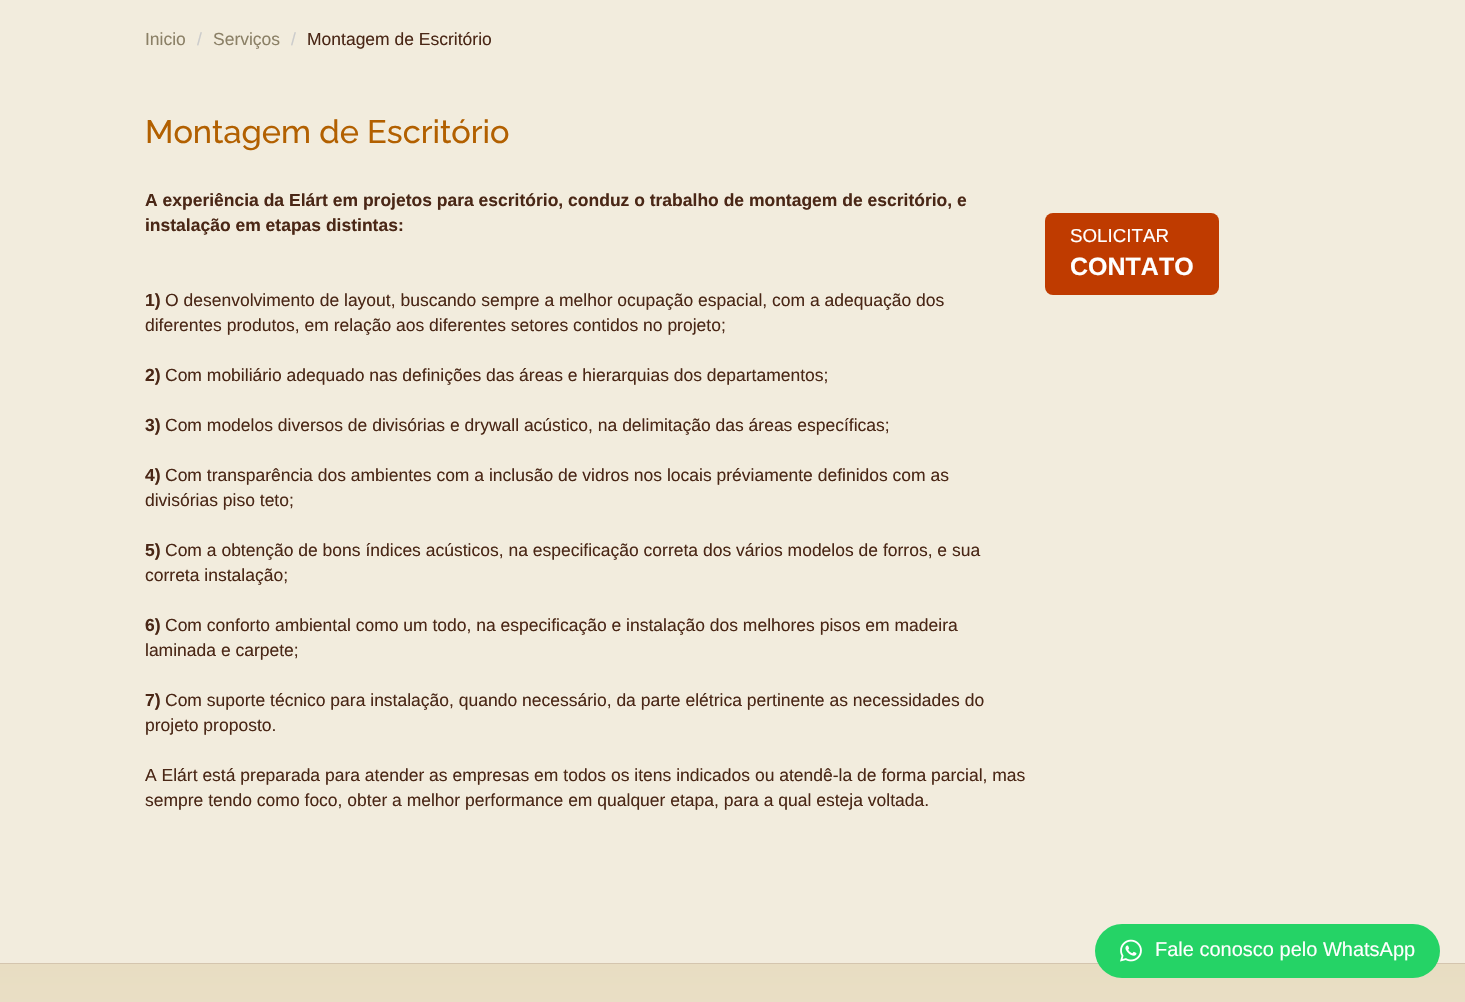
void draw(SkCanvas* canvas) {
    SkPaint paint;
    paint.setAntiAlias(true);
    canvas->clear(0xFFF2ECDD);
    SkFont font1(fontMgr->matchFamilyStyle("Liberation Sans", SkFontStyle::Normal()), 17.5f);
    font1.setSubpixel(true);
    paint.setColor(0xFF8B8066);
    canvas->drawString("Inicio", 145, 45, font1, paint);
    paint.setColor(0xFFCCCCCC);
    canvas->drawString("/", 197, 45, font1, paint);
    paint.setColor(0xFF8B8066);
    canvas->drawString("Serviços", 213, 45, font1, paint);
    paint.setColor(0xFFCCCCCC);
    canvas->drawString("/", 291, 45, font1, paint);
    paint.setColor(0xFF4A2716);
    canvas->drawString("Montagem de Escritório", 307, 45, font1, paint);
    SkFont font2(fontMgr->matchFamilyStyle("Raleway", SkFontStyle(500, SkFontStyle::kNormal_Width, SkFontStyle::kUpright_Slant)), 32.5f);
    font2.setSubpixel(true);
    paint.setColor(0xFFB26000);
    canvas->drawString("Montagem de Escritório", 145, 143, font2, paint);
    SkFont font3(fontMgr->matchFamilyStyle("Liberation Sans", SkFontStyle::Bold()), 17.5f);
    font3.setSubpixel(true);
    paint.setColor(0xFF4A2716);
    canvas->drawString("A experiência da Elárt em projetos para escritório, conduz o trabalho de montagem de escritório, e", 145, 206, font3, paint);
    canvas->drawString("instalação em etapas distintas:", 145, 231, font3, paint);
    canvas->drawString("1)", 145, 306, font3, paint);
    canvas->drawString("O desenvolvimento de layout, buscando sempre a melhor ocupação espacial, com a adequação dos", 165, 306, font1, paint);
    canvas->drawString("diferentes produtos, em relação aos diferentes setores contidos no projeto;", 145, 331, font1, paint);
    canvas->drawString("2)", 145, 381, font3, paint);
    canvas->drawString("Com mobiliário adequado nas definições das áreas e hierarquias dos departamentos;", 165, 381, font1, paint);
    canvas->drawString("3)", 145, 431, font3, paint);
    canvas->drawString("Com modelos diversos de divisórias e drywall acústico, na delimitação das áreas específicas;", 165, 431, font1, paint);
    canvas->drawString("4)", 145, 481, font3, paint);
    canvas->drawString("Com transparência dos ambientes com a inclusão de vidros nos locais préviamente definidos com as", 165, 481, font1, paint);
    canvas->drawString("divisórias piso teto;", 145, 506, font1, paint);
    canvas->drawString("5)", 145, 556, font3, paint);
    canvas->drawString("Com a obtenção de bons índices acústicos, na especificação correta dos vários modelos de forros, e sua", 165, 556, font1, paint);
    canvas->drawString("correta instalação;", 145, 581, font1, paint);
    canvas->drawString("6)", 145, 631, font3, paint);
    canvas->drawString("Com conforto ambiental como um todo, na especificação e instalação dos melhores pisos em madeira", 165, 631, font1, paint);
    canvas->drawString("laminada e carpete;", 145, 656, font1, paint);
    canvas->drawString("7)", 145, 706, font3, paint);
    canvas->drawString("Com suporte técnico para instalação, quando necessário, da parte elétrica pertinente as necessidades do", 165, 706, font1, paint);
    canvas->drawString("projeto proposto.", 145, 731, font1, paint);
    canvas->drawString("A Elárt está preparada para atender as empresas em todos os itens indicados ou atendê-la de forma parcial, mas", 145, 781, font1, paint);
    canvas->drawString("sempre tendo como foco, obter a melhor performance em qualquer etapa, para a qual esteja voltada.", 145, 806, font1, paint);
    paint.setColor(0xFFBF3B00);
    canvas->drawRoundRect(SkRect::MakeXYWH(1045, 213, 174, 82), 8, 8, paint);
    SkFont font4(fontMgr->matchFamilyStyle("Liberation Sans", SkFontStyle::Normal()), 18.75f);
    font4.setSubpixel(true);
    paint.setColor(0xFFFFFFFF);
    canvas->drawString("SOLICITAR", 1070, 242, font4, paint);
    SkFont font5(fontMgr->matchFamilyStyle("Liberation Sans", SkFontStyle::Bold()), 25);
    font5.setSubpixel(true);
    canvas->drawString("CONTATO", 1070, 275, font5, paint);
    {
        const SkColor colors[] = {0xFFE8DDC2, 0xFFF2ECDD};
        const float stops[] = {0, 1};
        const SkPoint ends[] = {{733, 964}, {733, 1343}};
        paint.setShader(SkGradientShader::MakeLinear(ends, colors, stops, 2, SkTileMode::kClamp));
        paint.setAlpha(255);
    }
    canvas->drawRect(SkRect::MakeXYWH(0, 964, 1465, 38), paint);
    paint.setShader(nullptr);
    paint.setColor(0xFFD4C5AE);
    canvas->drawRect(SkRect::MakeXYWH(0, 963, 1465, 1), paint);
    paint.setColor(0xFF25D366);
    canvas->drawRoundRect(SkRect::MakeXYWH(1095, 924, 345, 54), 27, 27, paint);
    canvas->drawImageRect(SkImages::DeferredFromEncodedData(SkData::MakeFromFileName("img1.png")), SkRect::MakeXYWH(1120, 939, 22, 23), SkSamplingOptions());
    SkFont font6(fontMgr->matchFamilyStyle("Liberation Sans", SkFontStyle::Normal()), 20);
    font6.setSubpixel(true);
    paint.setColor(0xFFFFFFFF);
    canvas->drawString("Fale conosco pelo WhatsApp", 1155, 956, font6, paint);
}
